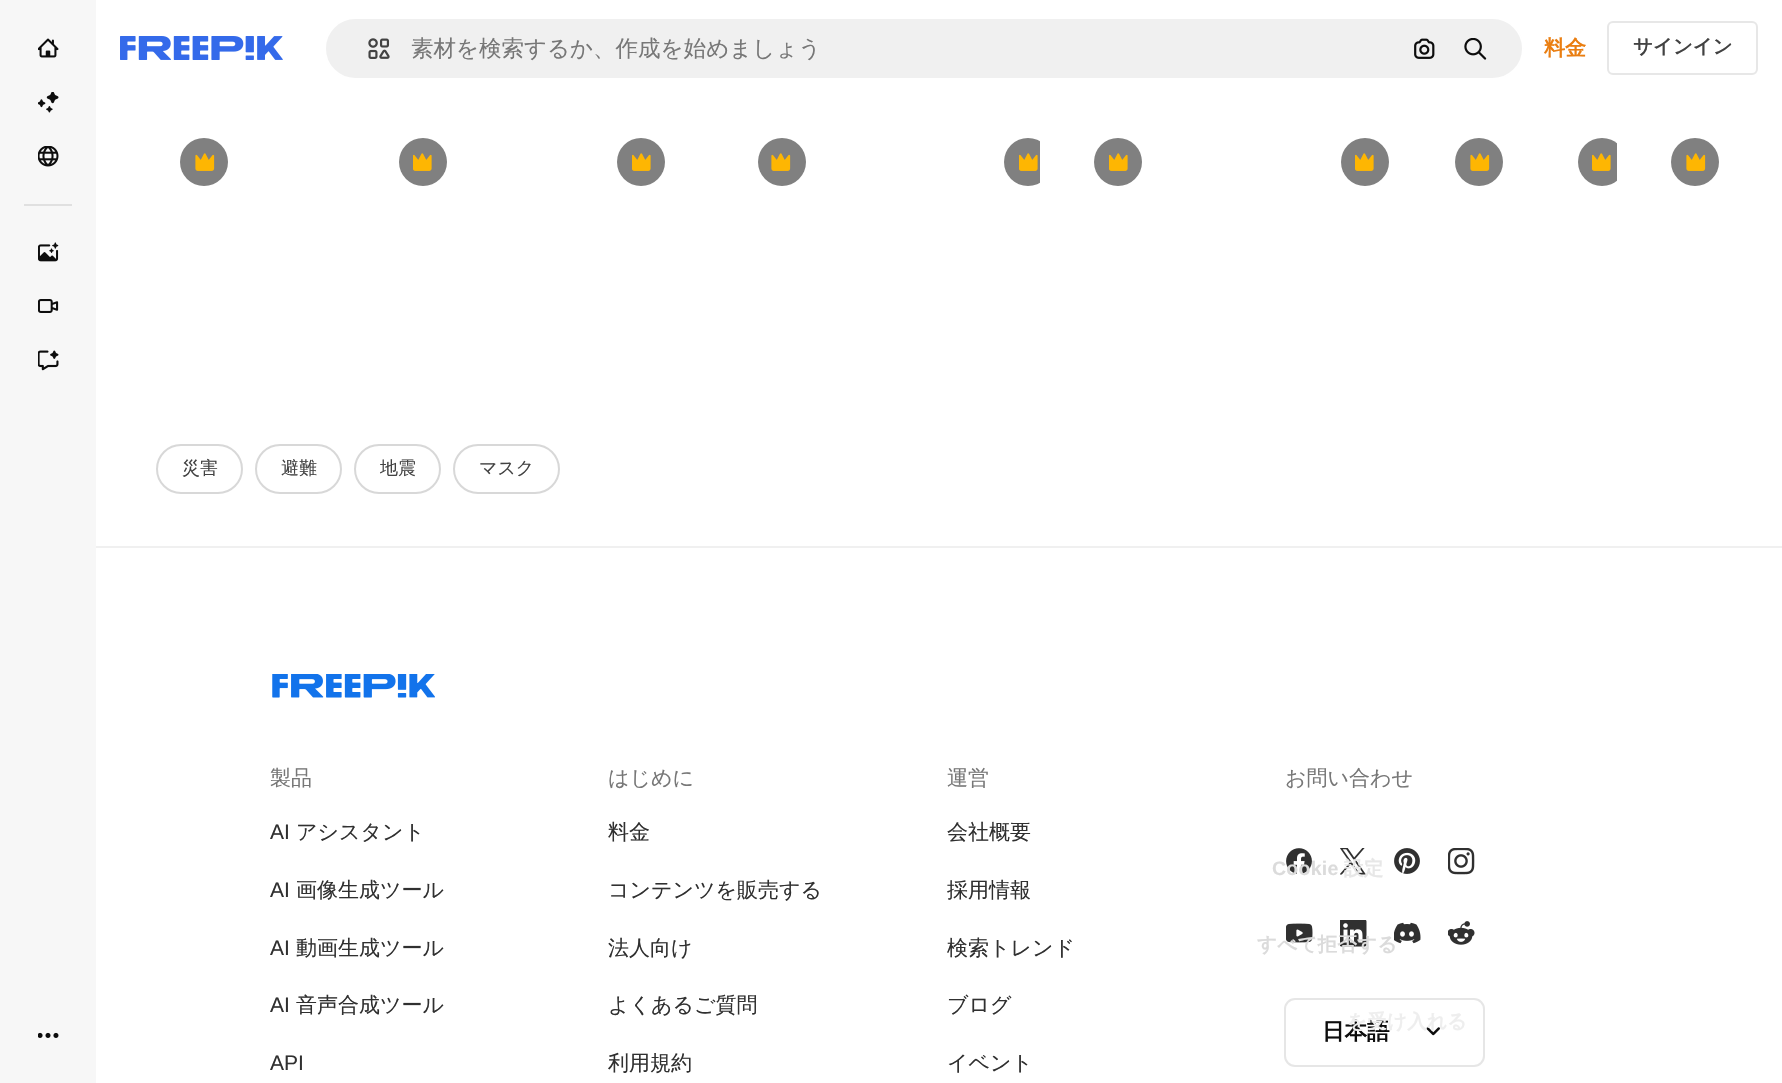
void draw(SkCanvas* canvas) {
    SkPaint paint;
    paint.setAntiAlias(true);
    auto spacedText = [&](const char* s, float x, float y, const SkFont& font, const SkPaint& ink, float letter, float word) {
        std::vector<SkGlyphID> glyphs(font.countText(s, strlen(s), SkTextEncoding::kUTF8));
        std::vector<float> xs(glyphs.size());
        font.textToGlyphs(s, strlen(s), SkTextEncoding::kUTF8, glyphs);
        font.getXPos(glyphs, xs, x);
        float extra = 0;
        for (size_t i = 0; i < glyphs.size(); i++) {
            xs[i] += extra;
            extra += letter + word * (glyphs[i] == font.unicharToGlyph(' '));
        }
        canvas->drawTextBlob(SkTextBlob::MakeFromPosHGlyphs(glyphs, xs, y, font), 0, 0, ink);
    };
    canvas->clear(0xFFFFFFFF);
    paint.setColor(0xFFF7F7F7);
    canvas->drawRect(SkRect::MakeXYWH(0, 0, 96, 1083), paint);
    canvas->drawImageRect(SkImages::DeferredFromEncodedData(SkData::MakeFromFileName("img1.png")), SkRect::MakeXYWH(38, 38, 21, 20), SkSamplingOptions());
    canvas->drawImageRect(SkImages::DeferredFromEncodedData(SkData::MakeFromFileName("img2.png")), SkRect::MakeXYWH(38, 92, 21, 21), SkSamplingOptions());
    canvas->drawImageRect(SkImages::DeferredFromEncodedData(SkData::MakeFromFileName("img3.png")), SkRect::MakeXYWH(38, 146, 21, 21), SkSamplingOptions());
    paint.setColor(0xFFE0E0E0);
    canvas->drawRect(SkRect::MakeXYWH(24, 204, 48, 2), paint);
    canvas->drawImageRect(SkImages::DeferredFromEncodedData(SkData::MakeFromFileName("img4.png")), SkRect::MakeXYWH(38, 242, 21, 20), SkSamplingOptions());
    canvas->drawImageRect(SkImages::DeferredFromEncodedData(SkData::MakeFromFileName("img5.png")), SkRect::MakeXYWH(38, 299, 21, 14), SkSamplingOptions());
    canvas->drawImageRect(SkImages::DeferredFromEncodedData(SkData::MakeFromFileName("img6.png")), SkRect::MakeXYWH(38, 350, 21, 21), SkSamplingOptions());
    canvas->drawImageRect(SkImages::DeferredFromEncodedData(SkData::MakeFromFileName("img7.png")), SkRect::MakeXYWH(38, 1032, 21, 6), SkSamplingOptions());
    canvas->drawImageRect(SkImages::DeferredFromEncodedData(SkData::MakeFromFileName("img8.png")), SkRect::MakeXYWH(120, 36, 163, 24), SkSamplingOptions());
    paint.setColor(0xFFF0F0F0);
    canvas->drawRoundRect(SkRect::MakeXYWH(325, 18, 1198, 61), 30.5f, 30.5f, paint);
    paint.setStyle(SkPaint::kStroke_Style);
    paint.setStrokeWidth(2);
    paint.setColor(0xFFFFFFFF);
    canvas->drawRoundRect(SkRect::MakeXYWH(325, 18, 1198, 61), 30.5f, 30.5f, paint);
    canvas->drawImageRect(SkImages::DeferredFromEncodedData(SkData::MakeFromFileName("img9.png")), SkRect::MakeXYWH(368, 38, 22, 21), SkSamplingOptions());
    SkFont font1(fontMgr->matchFamilyStyle("WenQuanYi Zen Hei", SkFontStyle(500, SkFontStyle::kNormal_Width, SkFontStyle::kUpright_Slant)), 22.5f);
    font1.setSubpixel(true);
    paint.setStyle(SkPaint::kFill_Style);
    paint.setColor(0xFF777777);
    canvas->drawString("素材を検索するか、作成を始めましょう", 411, 56, font1, paint);
    canvas->drawImageRect(SkImages::DeferredFromEncodedData(SkData::MakeFromFileName("img10.png")), SkRect::MakeXYWH(1414, 38, 21, 21), SkSamplingOptions());
    canvas->drawImageRect(SkImages::DeferredFromEncodedData(SkData::MakeFromFileName("img11.png")), SkRect::MakeXYWH(1464, 38, 23, 22), SkSamplingOptions());
    SkFont font2(fontMgr->matchFamilyStyle("WenQuanYi Zen Hei", SkFontStyle::Bold()), 21);
    font2.setSubpixel(true);
    paint.setColor(0xFFEA7E11);
    canvas->drawString("料金", 1544, 55, font2, paint);
    paint.setStyle(SkPaint::kStroke_Style);
    paint.setColor(0xFFE7E7E7);
    canvas->drawRoundRect(SkRect::MakeXYWH(1608, 22, 149, 52), 5, 5, paint);
    SkFont font3(fontMgr->matchFamilyStyle("WenQuanYi Zen Hei", SkFontStyle::Bold()), 19.5f);
    font3.setSubpixel(true);
    paint.setStyle(SkPaint::kFill_Style);
    paint.setColor(0xFF424242);
    canvas->drawString("サインイン", 1633, 53, font3, paint);
    paint.setColor(0xFF808080);
    canvas->drawCircle(204, 162, 24, paint);
    canvas->drawImageRect(SkImages::DeferredFromEncodedData(SkData::MakeFromFileName("img12.png")), SkRect::MakeXYWH(195, 153, 20, 18), SkSamplingOptions());
    canvas->drawCircle(423, 162, 24, paint);
    canvas->drawImageRect(SkImages::DeferredFromEncodedData(SkData::MakeFromFileName("img13.png")), SkRect::MakeXYWH(413, 153, 19, 18), SkSamplingOptions());
    canvas->drawCircle(641, 162, 24, paint);
    canvas->drawImageRect(SkImages::DeferredFromEncodedData(SkData::MakeFromFileName("img13.png")), SkRect::MakeXYWH(632, 153, 19, 18), SkSamplingOptions());
    canvas->drawCircle(782, 162, 24, paint);
    canvas->drawImageRect(SkImages::DeferredFromEncodedData(SkData::MakeFromFileName("img12.png")), SkRect::MakeXYWH(771, 153, 20, 18), SkSamplingOptions());
    canvas->save();
    canvas->clipPath(SkPathBuilder().moveTo(1004, 114).lineTo(1016, 114).cubicTo(1029.5f, 114, 1040, 124.5f, 1040, 138).lineTo(1040, 390).cubicTo(1040, 403.5f, 1029.5f, 414, 1016, 414).lineTo(1004, 414).cubicTo(990.5f, 414, 980, 403.5f, 980, 390).lineTo(980, 138).cubicTo(980, 124.5f, 990.5f, 114, 1004, 114).close().detach(), true);
    canvas->drawCircle(1028, 162, 24, paint);
    canvas->restore();
    canvas->drawImageRect(SkImages::DeferredFromEncodedData(SkData::MakeFromFileName("img13.png")), SkRect::MakeXYWH(1019, 153, 19, 18), SkSamplingOptions());
    canvas->drawCircle(1118, 162, 24, paint);
    canvas->drawImageRect(SkImages::DeferredFromEncodedData(SkData::MakeFromFileName("img13.png")), SkRect::MakeXYWH(1109, 153, 19, 18), SkSamplingOptions());
    canvas->drawCircle(1365, 162, 24, paint);
    canvas->drawImageRect(SkImages::DeferredFromEncodedData(SkData::MakeFromFileName("img13.png")), SkRect::MakeXYWH(1355, 153, 19, 18), SkSamplingOptions());
    canvas->drawCircle(1479, 162, 24, paint);
    canvas->drawImageRect(SkImages::DeferredFromEncodedData(SkData::MakeFromFileName("img12.png")), SkRect::MakeXYWH(1470, 153, 20, 18), SkSamplingOptions());
    canvas->save();
    canvas->clipPath(SkPathBuilder().moveTo(1578, 114).lineTo(1593, 114).cubicTo(1606.5f, 114, 1617, 124.5f, 1617, 138).lineTo(1617, 390).cubicTo(1617, 403.5f, 1606.5f, 414, 1593, 414).lineTo(1578, 414).cubicTo(1564.5f, 414, 1554, 403.5f, 1554, 390).lineTo(1554, 138).cubicTo(1554, 124.5f, 1564.5f, 114, 1578, 114).close().detach(), true);
    canvas->drawCircle(1602, 162, 24, paint);
    canvas->restore();
    canvas->drawImageRect(SkImages::DeferredFromEncodedData(SkData::MakeFromFileName("img13.png")), SkRect::MakeXYWH(1592, 153, 19, 18), SkSamplingOptions());
    canvas->drawCircle(1695, 162, 24, paint);
    canvas->drawImageRect(SkImages::DeferredFromEncodedData(SkData::MakeFromFileName("img12.png")), SkRect::MakeXYWH(1686, 153, 20, 18), SkSamplingOptions());
    paint.setStyle(SkPaint::kStroke_Style);
    paint.setColor(0xFFD8D8D8);
    canvas->drawRoundRect(SkRect::MakeXYWH(157, 445, 85, 48), 24, 24, paint);
    SkFont font4(fontMgr->matchFamilyStyle("WenQuanYi Zen Hei", SkFontStyle(500, SkFontStyle::kNormal_Width, SkFontStyle::kUpright_Slant)), 18);
    font4.setSubpixel(true);
    paint.setStyle(SkPaint::kFill_Style);
    paint.setColor(0xFF424242);
    canvas->drawString("災害", 182, 474, font4, paint);
    paint.setStyle(SkPaint::kStroke_Style);
    paint.setColor(0xFFD8D8D8);
    canvas->drawRoundRect(SkRect::MakeXYWH(256, 445, 85, 48), 24, 24, paint);
    paint.setStyle(SkPaint::kFill_Style);
    paint.setColor(0xFF424242);
    canvas->drawString("避難", 281, 474, font4, paint);
    paint.setStyle(SkPaint::kStroke_Style);
    paint.setColor(0xFFD8D8D8);
    canvas->drawRoundRect(SkRect::MakeXYWH(355, 445, 85, 48), 24, 24, paint);
    paint.setStyle(SkPaint::kFill_Style);
    paint.setColor(0xFF424242);
    canvas->drawString("地震", 380, 474, font4, paint);
    paint.setStyle(SkPaint::kStroke_Style);
    paint.setColor(0xFFD8D8D8);
    canvas->drawRoundRect(SkRect::MakeXYWH(454, 445, 105, 48), 24, 24, paint);
    paint.setStyle(SkPaint::kFill_Style);
    paint.setColor(0xFF424242);
    canvas->drawString("マスク", 479, 474, font4, paint);
    paint.setColor(0xFFF0F0F0);
    canvas->drawRect(SkRect::MakeXYWH(96, 546, 1686, 2), paint);
    canvas->drawImageRect(SkImages::DeferredFromEncodedData(SkData::MakeFromFileName("img14.png")), SkRect::MakeXYWH(272, 674, 163, 24), SkSamplingOptions());
    SkFont font5(fontMgr->matchFamilyStyle("WenQuanYi Zen Hei", SkFontStyle(500, SkFontStyle::kNormal_Width, SkFontStyle::kUpright_Slant)), 21);
    font5.setSubpixel(true);
    paint.setColor(0xFF777777);
    canvas->drawString("製品", 270, 785, font5, paint);
    SkFont font6(fontMgr->matchFamilyStyle("Liberation Sans", SkFontStyle::Normal()), 21);
    font6.setSubpixel(true);
    paint.setColor(0xFF303030);
    canvas->drawString("AI", 270, 839, font6, paint);
    canvas->drawString("アシスタント", 296, 839, font5, paint);
    canvas->drawString("AI", 270, 897, font6, paint);
    canvas->drawString("画像生成ツール", 296, 897, font5, paint);
    canvas->drawString("AI", 270, 955, font6, paint);
    canvas->drawString("動画生成ツール", 296, 955, font5, paint);
    canvas->drawString("AI", 270, 1012, font6, paint);
    canvas->drawString("音声合成ツール", 296, 1012, font5, paint);
    canvas->drawString("API", 270, 1070, font6, paint);
    paint.setColor(0xFF777777);
    canvas->drawString("はじめに", 608, 785, font5, paint);
    paint.setColor(0xFF303030);
    canvas->drawString("料金", 608, 839, font5, paint);
    canvas->drawString("コンテンツを販売する", 608, 897, font5, paint);
    canvas->drawString("法人向け", 608, 955, font5, paint);
    canvas->drawString("よくあるご質問", 608, 1012, font5, paint);
    canvas->drawString("利用規約", 608, 1070, font5, paint);
    paint.setColor(0xFF777777);
    canvas->drawString("運営", 947, 785, font5, paint);
    paint.setColor(0xFF303030);
    canvas->drawString("会社概要", 947, 839, font5, paint);
    canvas->drawString("採用情報", 947, 897, font5, paint);
    canvas->drawString("検索トレンド", 947, 955, font5, paint);
    canvas->drawString("ブログ", 947, 1012, font5, paint);
    canvas->drawString("イベント", 947, 1070, font5, paint);
    paint.setColor(0xFF777777);
    canvas->drawString("お問い合わせ", 1285, 785, font5, paint);
    canvas->drawImageRect(SkImages::DeferredFromEncodedData(SkData::MakeFromFileName("img15.png")), SkRect::MakeXYWH(1286, 848, 26, 26), SkSamplingOptions());
    canvas->drawImageRect(SkImages::DeferredFromEncodedData(SkData::MakeFromFileName("img16.png")), SkRect::MakeXYWH(1340, 848, 26, 27), SkSamplingOptions());
    canvas->drawImageRect(SkImages::DeferredFromEncodedData(SkData::MakeFromFileName("img17.png")), SkRect::MakeXYWH(1394, 848, 26, 26), SkSamplingOptions());
    canvas->drawImageRect(SkImages::DeferredFromEncodedData(SkData::MakeFromFileName("img18.png")), SkRect::MakeXYWH(1448, 848, 27, 27), SkSamplingOptions());
    canvas->drawImageRect(SkImages::DeferredFromEncodedData(SkData::MakeFromFileName("img19.png")), SkRect::MakeXYWH(1286, 923, 27, 20), SkSamplingOptions());
    canvas->drawImageRect(SkImages::DeferredFromEncodedData(SkData::MakeFromFileName("img20.png")), SkRect::MakeXYWH(1340, 920, 27, 27), SkSamplingOptions());
    canvas->drawImageRect(SkImages::DeferredFromEncodedData(SkData::MakeFromFileName("img21.png")), SkRect::MakeXYWH(1394, 922, 27, 22), SkSamplingOptions());
    canvas->drawImageRect(SkImages::DeferredFromEncodedData(SkData::MakeFromFileName("img22.png")), SkRect::MakeXYWH(1448, 921, 27, 24), SkSamplingOptions());
    paint.setStyle(SkPaint::kStroke_Style);
    paint.setColor(0xFFE6E6E6);
    canvas->drawRoundRect(SkRect::MakeXYWH(1285, 999, 199, 67), 10, 10, paint);
    SkFont font7(fontMgr->matchFamilyStyle("WenQuanYi Zen Hei", SkFontStyle::Bold()), 22.5f);
    font7.setSubpixel(true);
    paint.setStyle(SkPaint::kFill_Style);
    paint.setColor(0xFF0D0D0D);
    canvas->drawString("日本語", 1322, 1039, font7, paint);
    canvas->drawImageRect(SkImages::DeferredFromEncodedData(SkData::MakeFromFileName("img23.png")), SkRect::MakeXYWH(1426, 1027, 14, 9), SkSamplingOptions());
    SkFont font8(fontMgr->matchFamilyStyle("Liberation Sans", SkFontStyle::Bold()), 19.5f);
    font8.setSubpixel(true);
    paint.setColor(0xFFDBDBDB);
    spacedText("Cookie", 1272, 875, font8, paint, 0.25f, 0);
    paint.setColor(0xFFE7E7E7);
    spacedText("設定", 1344, 875, font3, paint, 0.25f, 0);
    paint.setColor(0xFFDBDBDB);
    spacedText("すべて拒否する", 1257, 951, font3, paint, 0.25f, 0);
    paint.setColor(0xFFEEEEEE);
    spacedText("を受け入れる", 1347, 1028, font3, paint, 0.25f, 0);
}
